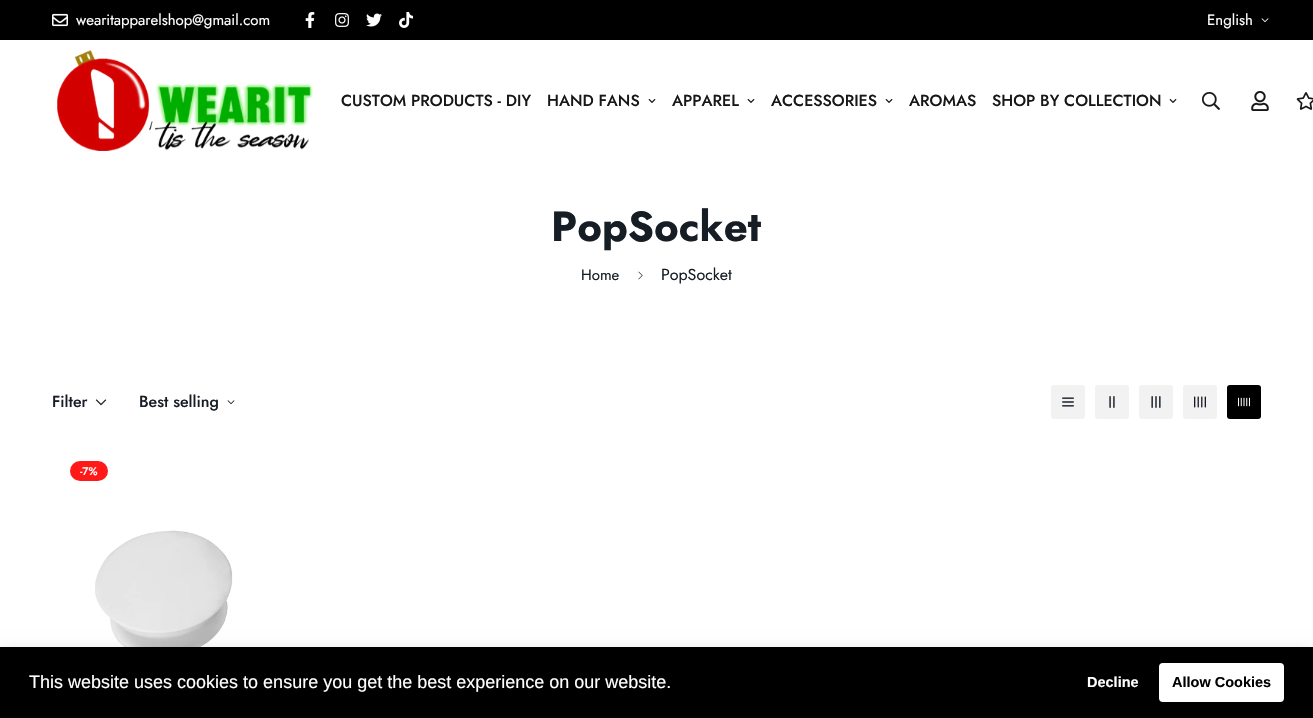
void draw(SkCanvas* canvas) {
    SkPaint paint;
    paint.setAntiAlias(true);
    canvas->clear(0xFFFFFFFF);
    paint.setColor(0xFF000000);
    canvas->drawRect(SkRect::MakeXYWH(0, 0, 1313, 40), paint);
    canvas->drawImageRect(SkImages::DeferredFromEncodedData(SkData::MakeFromFileName("img1.png")), SkRect::MakeXYWH(52, 13, 16, 14), SkSamplingOptions());
    SkFont font1(fontMgr->matchFamilyStyle("Jost", SkFontStyle::Normal()), 15);
    font1.setSubpixel(true);
    paint.setColor(0xFFFFFFFF);
    canvas->drawString("wearitapparelshop@gmail.com", 76, 25, font1, paint);
    canvas->drawImageRect(SkImages::DeferredFromEncodedData(SkData::MakeFromFileName("img2.png")), SkRect::MakeXYWH(305, 12, 10, 16), SkSamplingOptions());
    canvas->drawImageRect(SkImages::DeferredFromEncodedData(SkData::MakeFromFileName("img3.png")), SkRect::MakeXYWH(335, 13, 14, 14), SkSamplingOptions());
    canvas->drawImageRect(SkImages::DeferredFromEncodedData(SkData::MakeFromFileName("img4.png")), SkRect::MakeXYWH(366, 13, 16, 14), SkSamplingOptions());
    canvas->drawImageRect(SkImages::DeferredFromEncodedData(SkData::MakeFromFileName("img5.png")), SkRect::MakeXYWH(399, 12, 14, 16), SkSamplingOptions());
    canvas->drawString("English", 1207, 25, font1, paint);
    canvas->drawImageRect(SkImages::DeferredFromEncodedData(SkData::MakeFromFileName("img6.png")), SkRect::MakeXYWH(1261, 18, 8, 5), SkSamplingOptions());
    canvas->drawImageRect(SkImages::DeferredFromEncodedData(SkData::MakeFromFileName("img7.png")), SkRect::MakeXYWH(57, 50, 256, 101), SkSamplingOptions());
    SkFont font2(fontMgr->matchFamilyStyle("Jost", SkFontStyle(500, SkFontStyle::kNormal_Width, SkFontStyle::kUpright_Slant)), 16);
    font2.setSubpixel(true);
    paint.setColor(0xFF171717);
    canvas->drawString("CUSTOM PRODUCTS - DIY", 341, 106, font2, paint);
    canvas->drawString("HAND FANS", 547, 106, font2, paint);
    canvas->drawImageRect(SkImages::DeferredFromEncodedData(SkData::MakeFromFileName("img8.png")), SkRect::MakeXYWH(648, 99, 8, 4), SkSamplingOptions());
    canvas->drawString("APPAREL", 672, 106, font2, paint);
    canvas->drawImageRect(SkImages::DeferredFromEncodedData(SkData::MakeFromFileName("img8.png")), SkRect::MakeXYWH(747, 99, 8, 4), SkSamplingOptions());
    canvas->drawString("ACCESSORIES", 771, 106, font2, paint);
    canvas->drawImageRect(SkImages::DeferredFromEncodedData(SkData::MakeFromFileName("img8.png")), SkRect::MakeXYWH(885, 99, 8, 4), SkSamplingOptions());
    canvas->drawString("AROMAS", 909, 106, font2, paint);
    canvas->drawString("SHOP BY COLLECTION", 992, 106, font2, paint);
    canvas->drawImageRect(SkImages::DeferredFromEncodedData(SkData::MakeFromFileName("img8.png")), SkRect::MakeXYWH(1169, 99, 8, 4), SkSamplingOptions());
    canvas->drawImageRect(SkImages::DeferredFromEncodedData(SkData::MakeFromFileName("img9.png")), SkRect::MakeXYWH(1202, 92, 18, 18), SkSamplingOptions());
    canvas->drawImageRect(SkImages::DeferredFromEncodedData(SkData::MakeFromFileName("img10.png")), SkRect::MakeXYWH(1251, 91, 18, 20), SkSamplingOptions());
    canvas->drawImageRect(SkImages::DeferredFromEncodedData(SkData::MakeFromFileName("img11.png")), SkRect::MakeXYWH(1296, 92, 17, 18), SkSamplingOptions());
    SkFont font3(fontMgr->matchFamilyStyle("Jost", SkFontStyle::Bold()), 42);
    font3.setSubpixel(true);
    paint.setColor(0xFF161D25);
    canvas->drawString("PopSocket", 551, 241, font3, paint);
    canvas->drawString("Home", 581, 280, font1, paint);
    canvas->drawImageRect(SkImages::DeferredFromEncodedData(SkData::MakeFromFileName("img12.png")), SkRect::MakeXYWH(638, 271, 5, 9), SkSamplingOptions());
    SkFont font4(fontMgr->matchFamilyStyle("Jost", SkFontStyle::Normal()), 16);
    font4.setSubpixel(true);
    canvas->drawString("PopSocket", 661, 280, font4, paint);
    canvas->drawString("Filter", 52, 407, font2, paint);
    canvas->drawImageRect(SkImages::DeferredFromEncodedData(SkData::MakeFromFileName("img13.png")), SkRect::MakeXYWH(95, 399, 12, 7), SkSamplingOptions());
    canvas->drawString("Best selling", 139, 407, font2, paint);
    canvas->drawImageRect(SkImages::DeferredFromEncodedData(SkData::MakeFromFileName("img14.png")), SkRect::MakeXYWH(227, 400, 8, 5), SkSamplingOptions());
    paint.setColor(0xFFF2F2F2);
    canvas->drawRoundRect(SkRect::MakeXYWH(1051, 385, 34, 34), 3, 3, paint);
    canvas->drawImageRect(SkImages::DeferredFromEncodedData(SkData::MakeFromFileName("img15.png")), SkRect::MakeXYWH(1062, 397, 12, 10), SkSamplingOptions());
    canvas->drawRoundRect(SkRect::MakeXYWH(1095, 385, 34, 34), 3, 3, paint);
    canvas->drawImageRect(SkImages::DeferredFromEncodedData(SkData::MakeFromFileName("img16.png")), SkRect::MakeXYWH(1109, 396, 6, 12), SkSamplingOptions());
    canvas->drawRoundRect(SkRect::MakeXYWH(1139, 385, 34, 34), 3, 3, paint);
    canvas->drawImageRect(SkImages::DeferredFromEncodedData(SkData::MakeFromFileName("img17.png")), SkRect::MakeXYWH(1151, 396, 10, 12), SkSamplingOptions());
    canvas->drawRoundRect(SkRect::MakeXYWH(1183, 385, 34, 34), 3, 3, paint);
    canvas->drawImageRect(SkImages::DeferredFromEncodedData(SkData::MakeFromFileName("img18.png")), SkRect::MakeXYWH(1194, 396, 12, 12), SkSamplingOptions());
    paint.setColor(0xFF000000);
    canvas->drawRoundRect(SkRect::MakeXYWH(1227, 385, 34, 34), 3, 3, paint);
    canvas->drawImageRect(SkImages::DeferredFromEncodedData(SkData::MakeFromFileName("img19.png")), SkRect::MakeXYWH(1238, 397, 12, 10), SkSamplingOptions());
    paint.setColor(0xFFFF1919);
    canvas->drawRoundRect(SkRect::MakeXYWH(70, 461, 38, 20), 10, 10, paint);
    SkFont font5(fontMgr->matchFamilyStyle("Jost", SkFontStyle(500, SkFontStyle::kNormal_Width, SkFontStyle::kUpright_Slant)), 11);
    font5.setSubpixel(true);
    paint.setColor(0xFFFFFFFF);
    canvas->drawString("-7%", 80, 475, font5, paint);
    canvas->drawImageRect(SkImages::DeferredFromEncodedData(SkData::MakeFromFileName("img20.png")), SkRect::MakeXYWH(95, 530, 138, 117), SkSamplingOptions());
    paint.setColor(0x26000000);
    paint.setMaskFilter(SkMaskFilter::MakeBlur(kNormal_SkBlurStyle, 7.5f));
    canvas->drawRect(SkRect::MakeXYWH(0, 652, 1313, 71), paint);
    paint.setMaskFilter(nullptr);
    paint.setColor(0xFF000000);
    canvas->drawRect(SkRect::MakeXYWH(0, 647, 1313, 71), paint);
    SkFont font6(fontMgr->matchFamilyStyle("Liberation Sans", SkFontStyle::Normal()), 18);
    font6.setSubpixel(true);
    paint.setColor(0xFFFFFFFF);
    canvas->drawString("This website uses cookies to ensure you get the best experience on our website.", 29, 688, font6, paint);
    SkFont font7(fontMgr->matchFamilyStyle("Liberation Sans", SkFontStyle::Bold()), 14.5f);
    font7.setSubpixel(true);
    canvas->drawString("Decline", 1087, 687, font7, paint);
    canvas->drawRoundRect(SkRect::MakeXYWH(1159, 663, 125, 39), 4, 4, paint);
    paint.setColor(0xFF000000);
    canvas->drawString("Allow Cookies", 1172, 687, font7, paint);
}
